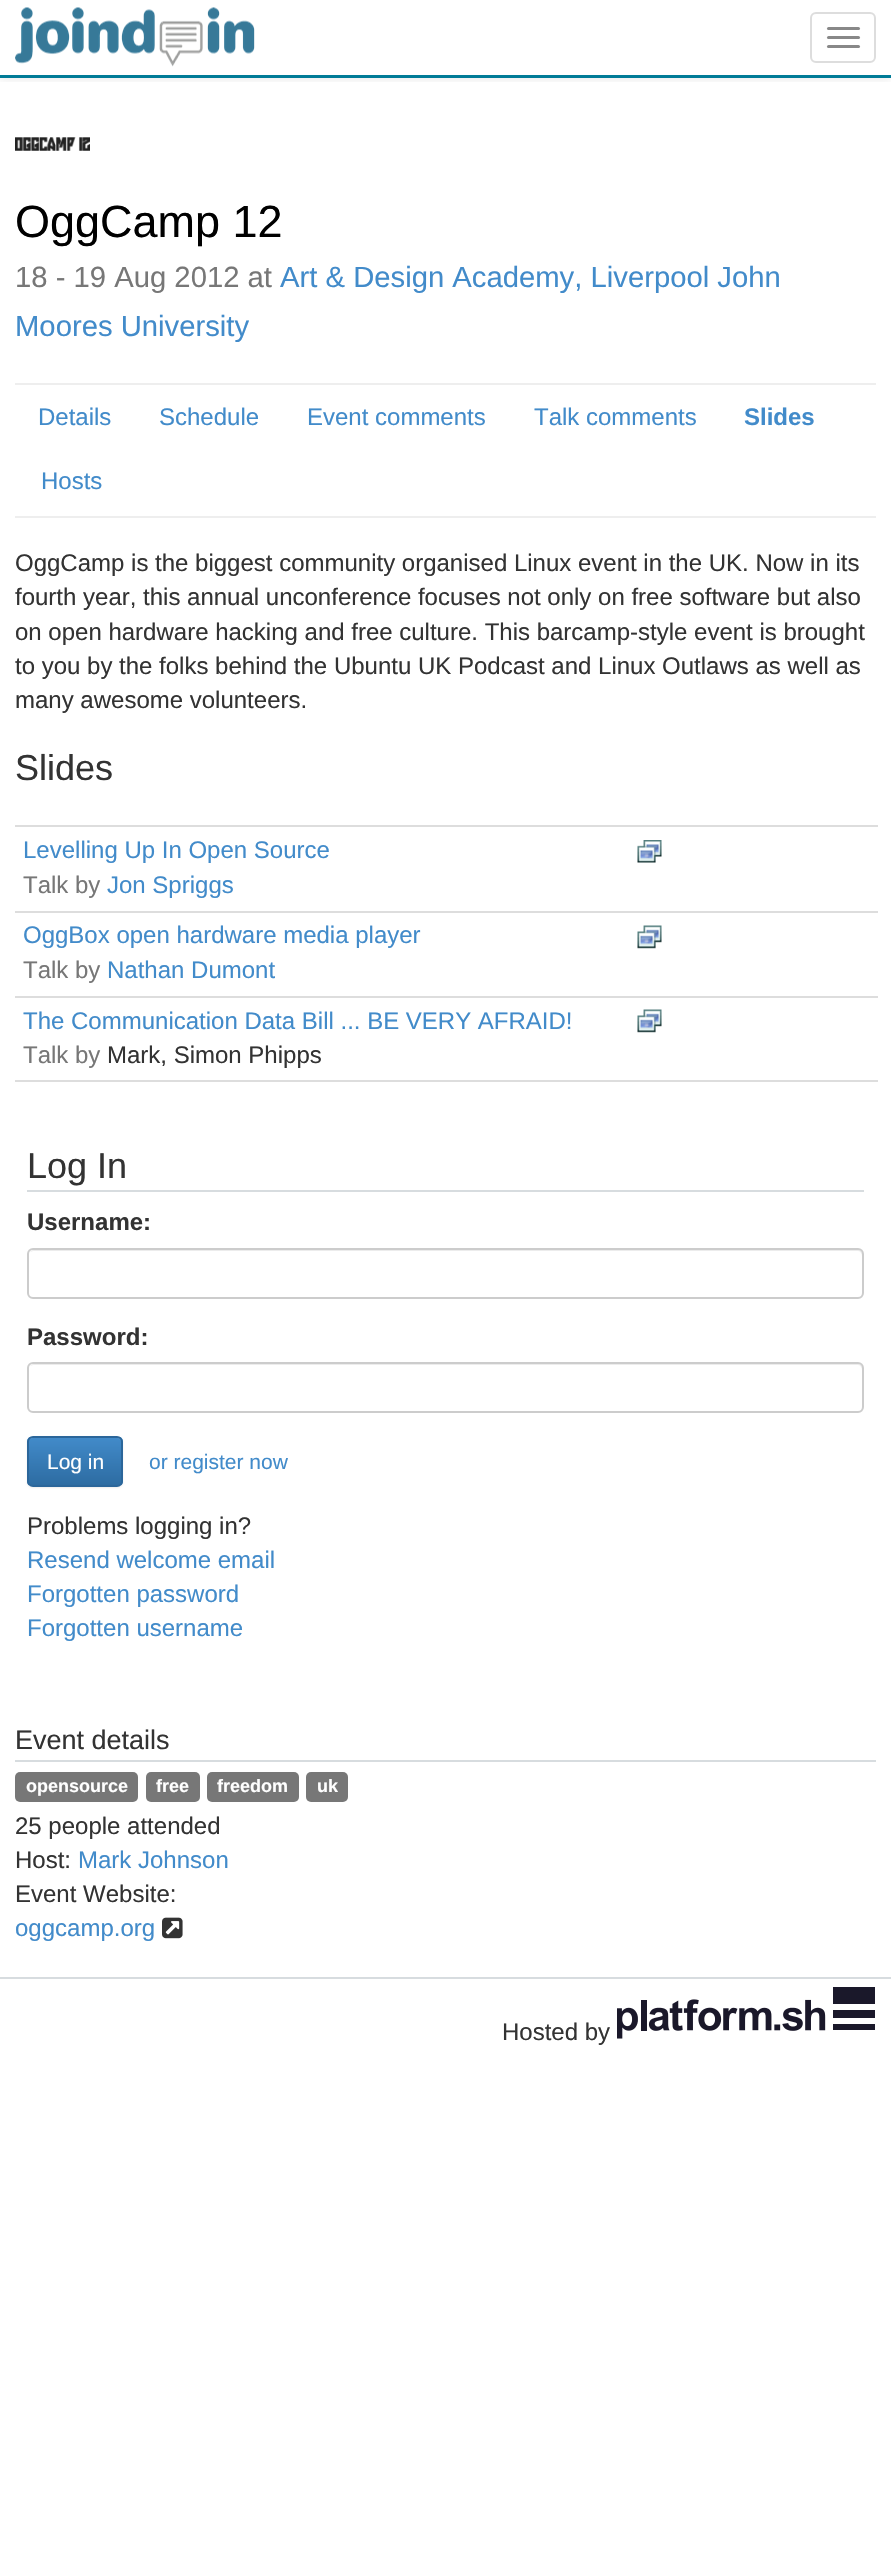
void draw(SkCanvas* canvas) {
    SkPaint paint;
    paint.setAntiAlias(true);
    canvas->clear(0xFFFFFFFF);
    canvas->save();
    canvas->clipRect(SkRect::MakeXYWH(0, 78, 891, 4));
    paint.setColor(0x12000000);
    paint.setMaskFilter(SkMaskFilter::MakeBlur(kNormal_SkBlurStyle, 4));
    canvas->drawRect(SkRect::MakeXYWH(0, 2, 891, 78), paint);
    paint.setMaskFilter(nullptr);
    canvas->restore();
    paint.setColor(0xFF007B97);
    canvas->drawRect(SkRect::MakeXYWH(0, 75, 891, 3), paint);
    canvas->drawImageRect(SkImages::DeferredFromEncodedData(SkData::MakeFromFileName("img1.png")), SkRect::MakeXYWH(15, 7, 240, 60), SkSamplingOptions());
    paint.setStyle(SkPaint::kStroke_Style);
    paint.setStrokeWidth(2);
    paint.setColor(0xFFDDDDDD);
    canvas->drawRoundRect(SkRect::MakeXYWH(811, 13, 64, 49), 5, 5, paint);
    paint.setStyle(SkPaint::kFill_Style);
    paint.setColor(0xFF888888);
    canvas->drawRoundRect(SkRect::MakeXYWH(827, 27, 33, 3), 1.5f, 1.5f, paint);
    canvas->drawRoundRect(SkRect::MakeXYWH(827, 36, 33, 3), 1.5f, 1.5f, paint);
    canvas->drawRoundRect(SkRect::MakeXYWH(827, 45, 33, 3), 1.5f, 1.5f, paint);
    paint.setColor(0xFFEEEEEE);
    canvas->drawRect(SkRect::MakeXYWH(15, 516, 861, 2), paint);
    canvas->drawImageRect(SkImages::DeferredFromEncodedData(SkData::MakeFromFileName("img2.png")), SkRect::MakeXYWH(15, 137, 75, 14), SkSamplingOptions());
    SkFont font1(fontMgr->matchFamilyStyle("Liberation Sans", SkFontStyle::Normal()), 45);
    font1.setSubpixel(true);
    paint.setColor(0xFF000000);
    canvas->drawString("OggCamp 12", 15, 237, font1, paint);
    SkFont font2(fontMgr->matchFamilyStyle("Liberation Sans", SkFontStyle::Normal()), 29.25f);
    font2.setSubpixel(true);
    paint.setColor(0xFF777777);
    canvas->drawString("18 - 19 Aug 2012 at", 15, 287, font2, paint);
    paint.setColor(0xFF428BCA);
    canvas->drawString("Art & Design Academy, Liverpool John", 280, 287, font2, paint);
    canvas->drawString("Moores University", 15, 336, font2, paint);
    paint.setColor(0xFFEEEEEE);
    canvas->drawRect(SkRect::MakeXYWH(15, 383, 861, 2), paint);
    SkFont font3(fontMgr->matchFamilyStyle("Liberation Sans", SkFontStyle::Normal()), 24);
    font3.setSubpixel(true);
    paint.setColor(0xFF428BCA);
    canvas->drawString("Details", 38, 425, font3, paint);
    canvas->drawString("Schedule", 159, 425, font3, paint);
    canvas->drawString("Event comments", 307, 425, font3, paint);
    canvas->drawString("Talk comments", 534, 425, font3, paint);
    SkFont font4(fontMgr->matchFamilyStyle("Liberation Sans", SkFontStyle::Bold()), 24);
    font4.setSubpixel(true);
    canvas->drawString("Slides", 744, 425, font4, paint);
    canvas->drawString("Hosts", 41, 489, font3, paint);
    paint.setColor(0xFF333333);
    canvas->drawString("OggCamp is the biggest community organised Linux event in the UK. Now in its", 15, 571, font3, paint);
    canvas->drawString("fourth year, this annual unconference focuses not only on free software but also", 15, 605, font3, paint);
    canvas->drawString("on open hardware hacking and free culture. This barcamp-style event is brought", 15, 640, font3, paint);
    canvas->drawString("to you by the folks behind the Ubuntu UK Podcast and Linux Outlaws as well as", 15, 674, font3, paint);
    canvas->drawString("many awesome volunteers.", 15, 708, font3, paint);
    SkFont font5(fontMgr->matchFamilyStyle("Liberation Sans", SkFontStyle::Normal()), 36);
    font5.setSubpixel(true);
    canvas->drawString("Slides", 15, 780, font5, paint);
    paint.setColor(0xFFDDDDDD);
    canvas->drawRect(SkRect::MakeXYWH(15, 825, 863, 2), paint);
    paint.setColor(0xFF428BCA);
    canvas->drawString("Levelling Up In Open Source", 23, 858, font3, paint);
    canvas->drawImageRect(SkImages::DeferredFromEncodedData(SkData::MakeFromFileName("img3.png")), SkRect::MakeXYWH(637, 840, 25, 23), SkSamplingOptions());
    paint.setColor(0xFF777777);
    canvas->drawString("Talk by", 23, 893, font3, paint);
    paint.setColor(0xFF428BCA);
    canvas->drawString("Jon Spriggs", 107, 893, font3, paint);
    paint.setColor(0xFFDDDDDD);
    canvas->drawRect(SkRect::MakeXYWH(15, 911, 863, 2), paint);
    paint.setColor(0xFF428BCA);
    canvas->drawString("OggBox open hardware media player", 23, 943, font3, paint);
    canvas->drawImageRect(SkImages::DeferredFromEncodedData(SkData::MakeFromFileName("img4.png")), SkRect::MakeXYWH(637, 925, 25, 24), SkSamplingOptions());
    paint.setColor(0xFF777777);
    canvas->drawString("Talk by", 23, 978, font3, paint);
    paint.setColor(0xFF428BCA);
    canvas->drawString("Nathan Dumont", 107, 978, font3, paint);
    paint.setColor(0xFFDDDDDD);
    canvas->drawRect(SkRect::MakeXYWH(15, 996, 863, 2), paint);
    canvas->drawRect(SkRect::MakeXYWH(15, 1080, 863, 2), paint);
    paint.setColor(0xFF428BCA);
    canvas->drawString("The Communication Data Bill ... BE VERY AFRAID!", 23, 1029, font3, paint);
    canvas->drawImageRect(SkImages::DeferredFromEncodedData(SkData::MakeFromFileName("img4.png")), SkRect::MakeXYWH(637, 1009, 25, 24), SkSamplingOptions());
    paint.setColor(0xFF777777);
    canvas->drawString("Talk by", 23, 1063, font3, paint);
    paint.setColor(0xFF333333);
    canvas->drawString("Mark, Simon Phipps", 107, 1063, font3, paint);
    paint.setColor(0xFFD7DCDF);
    canvas->drawRect(SkRect::MakeXYWH(27, 1190, 837, 2), paint);
    paint.setColor(0xFF333333);
    canvas->drawString("Log In", 27, 1178, font5, paint);
    canvas->drawString("Username:", 27, 1230, font4, paint);
    paint.setColor(0xFFECECEC);
    canvas->drawPath(SkPathBuilder().moveTo(33, 1251).lineTo(858, 1251).cubicTo(860, 1251, 862, 1253, 862, 1256).lineTo(862, 1294).lineTo(861, 1297).cubicTo(862, 1296, 863, 1294, 863, 1293).lineTo(863, 1255).cubicTo(863, 1252, 861, 1250, 858, 1250).lineTo(34, 1250).cubicTo(32, 1250, 31, 1251, 30, 1252).close().detach(), paint);
    paint.setStyle(SkPaint::kStroke_Style);
    paint.setColor(0xFFCCCCCC);
    canvas->drawRoundRect(SkRect::MakeXYWH(28, 1249, 835, 49), 5, 5, paint);
    paint.setStyle(SkPaint::kFill_Style);
    paint.setColor(0xFF333333);
    canvas->drawString("Password:", 27, 1345, font4, paint);
    paint.setColor(0xFFECECEC);
    canvas->drawPath(SkPathBuilder().moveTo(33, 1365).lineTo(858, 1365).cubicTo(860, 1365, 862, 1367, 862, 1370).lineTo(862, 1408).lineTo(861, 1411).cubicTo(862, 1410, 863, 1408, 863, 1407).lineTo(863, 1369).cubicTo(863, 1366, 861, 1364, 858, 1364).lineTo(34, 1364).cubicTo(32, 1364, 31, 1365, 30, 1366).close().detach(), paint);
    paint.setStyle(SkPaint::kStroke_Style);
    paint.setColor(0xFFCCCCCC);
    canvas->drawRoundRect(SkRect::MakeXYWH(28, 1363, 835, 49), 5, 5, paint);
    paint.setStyle(SkPaint::kFill_Style);
    paint.setColor(0x12000000);
    paint.setMaskFilter(SkMaskFilter::MakeBlur(kNormal_SkBlurStyle, 1));
    canvas->drawRoundRect(SkRect::MakeXYWH(27, 1437, 96, 51), 6, 6, paint);
    paint.setMaskFilter(nullptr);
    canvas->save();
    canvas->clipPath(SkPathBuilder().moveTo(33, 1436).lineTo(117, 1436).cubicTo(120.5f, 1436, 123, 1438.5f, 123, 1442).lineTo(123, 1481).cubicTo(123, 1484.5f, 120.5f, 1487, 117, 1487).lineTo(33, 1487).cubicTo(29.5f, 1487, 27, 1484.5f, 27, 1481).lineTo(27, 1442).cubicTo(27, 1438.5f, 29.5f, 1436, 33, 1436).close().detach(), true);
    {
        const SkColor colors[] = {0xFF428BCA, 0xFF2D6CA2};
        const float stops[] = {0, 1};
        const SkPoint ends[] = {{75, 1437}, {75, 1485}};
        paint.setShader(SkGradientShader::MakeLinear(ends, colors, stops, 2, SkTileMode::kClamp));
        paint.setAlpha(255);
    }
    canvas->drawRect(SkRect::MakeXYWH(27, 1437, 96, 48), paint);
    canvas->restore();
    paint.setShader(nullptr);
    paint.setColor(0x26FFFFFF);
    canvas->drawPath(SkPathBuilder().moveTo(33, 1438).lineTo(117, 1438).cubicTo(119, 1438, 122, 1441, 122, 1443).lineTo(122, 1442).cubicTo(122, 1439, 120, 1437, 117, 1437).lineTo(34, 1437).cubicTo(32, 1437, 30, 1438, 29, 1440).cubicTo(30, 1439, 32, 1438, 33, 1438).close().detach(), paint);
    paint.setStyle(SkPaint::kStroke_Style);
    paint.setColor(0xFF2B669A);
    canvas->drawRoundRect(SkRect::MakeXYWH(28, 1437, 94, 49), 5, 5, paint);
    SkFont font6(fontMgr->matchFamilyStyle("Liberation Sans", SkFontStyle::Normal()), 21);
    font6.setSubpixel(true);
    paint.setStyle(SkPaint::kFill_Style);
    paint.setColor(0xFFFFFFFF);
    canvas->drawString("Log in", 47, 1469, font6, paint);
    paint.setColor(0xFF428BCA);
    canvas->drawString("or register now", 149, 1469, font6, paint);
    paint.setColor(0xFF333333);
    canvas->drawString("Problems logging in?", 27, 1534, font3, paint);
    paint.setColor(0xFF428BCA);
    canvas->drawString("Resend welcome email", 27, 1568, font3, paint);
    canvas->drawString("Forgotten password", 27, 1602, font3, paint);
    canvas->drawString("Forgotten username", 27, 1636, font3, paint);
    paint.setColor(0xFFD7DCDF);
    canvas->drawRect(SkRect::MakeXYWH(15, 1760, 861, 2), paint);
    SkFont font7(fontMgr->matchFamilyStyle("Liberation Sans", SkFontStyle::Normal()), 27);
    font7.setSubpixel(true);
    paint.setColor(0xFF333333);
    canvas->drawString("Event details", 15, 1749, font7, paint);
    paint.setColor(0xFF777777);
    canvas->drawRoundRect(SkRect::MakeXYWH(15, 1772, 123, 30), 5, 5, paint);
    SkFont font8(fontMgr->matchFamilyStyle("Liberation Sans", SkFontStyle::Bold()), 18);
    font8.setSubpixel(true);
    paint.setColor(0xFFFFFFFF);
    canvas->drawString("opensource", 26, 1792, font8, paint);
    paint.setColor(0xFF777777);
    canvas->drawRoundRect(SkRect::MakeXYWH(146, 1772, 54, 30), 5, 5, paint);
    paint.setColor(0xFFFFFFFF);
    canvas->drawString("free", 156, 1792, font8, paint);
    paint.setColor(0xFF777777);
    canvas->drawRoundRect(SkRect::MakeXYWH(207, 1772, 92, 30), 5, 5, paint);
    paint.setColor(0xFFFFFFFF);
    canvas->drawString("freedom", 217, 1792, font8, paint);
    paint.setColor(0xFF777777);
    canvas->drawRoundRect(SkRect::MakeXYWH(306, 1772, 42, 30), 5, 5, paint);
    paint.setColor(0xFFFFFFFF);
    canvas->drawString("uk", 317, 1792, font8, paint);
    paint.setColor(0xFF333333);
    canvas->drawString("25 people attended", 15, 1834, font3, paint);
    canvas->drawString("Host:", 15, 1868, font3, paint);
    paint.setColor(0xFF428BCA);
    canvas->drawString("Mark Johnson", 78, 1868, font3, paint);
    paint.setColor(0xFF333333);
    canvas->drawString("Event Website:", 15, 1902, font3, paint);
    paint.setColor(0xFF428BCA);
    canvas->drawString("oggcamp.org", 15, 1936, font3, paint);
    canvas->drawImageRect(SkImages::DeferredFromEncodedData(SkData::MakeFromFileName("img5.png")), SkRect::MakeXYWH(162, 1917, 21, 22), SkSamplingOptions());
    paint.setColor(0xFFD7DCDF);
    canvas->drawRect(SkRect::MakeXYWH(0, 1977, 891, 2), paint);
    paint.setColor(0xFF333333);
    canvas->drawString("Hosted by", 502, 2040, font3, paint);
    canvas->drawImageRect(SkImages::DeferredFromEncodedData(SkData::MakeFromFileName("img6.png")), SkRect::MakeXYWH(617, 1987, 258, 52), SkSamplingOptions());
}
